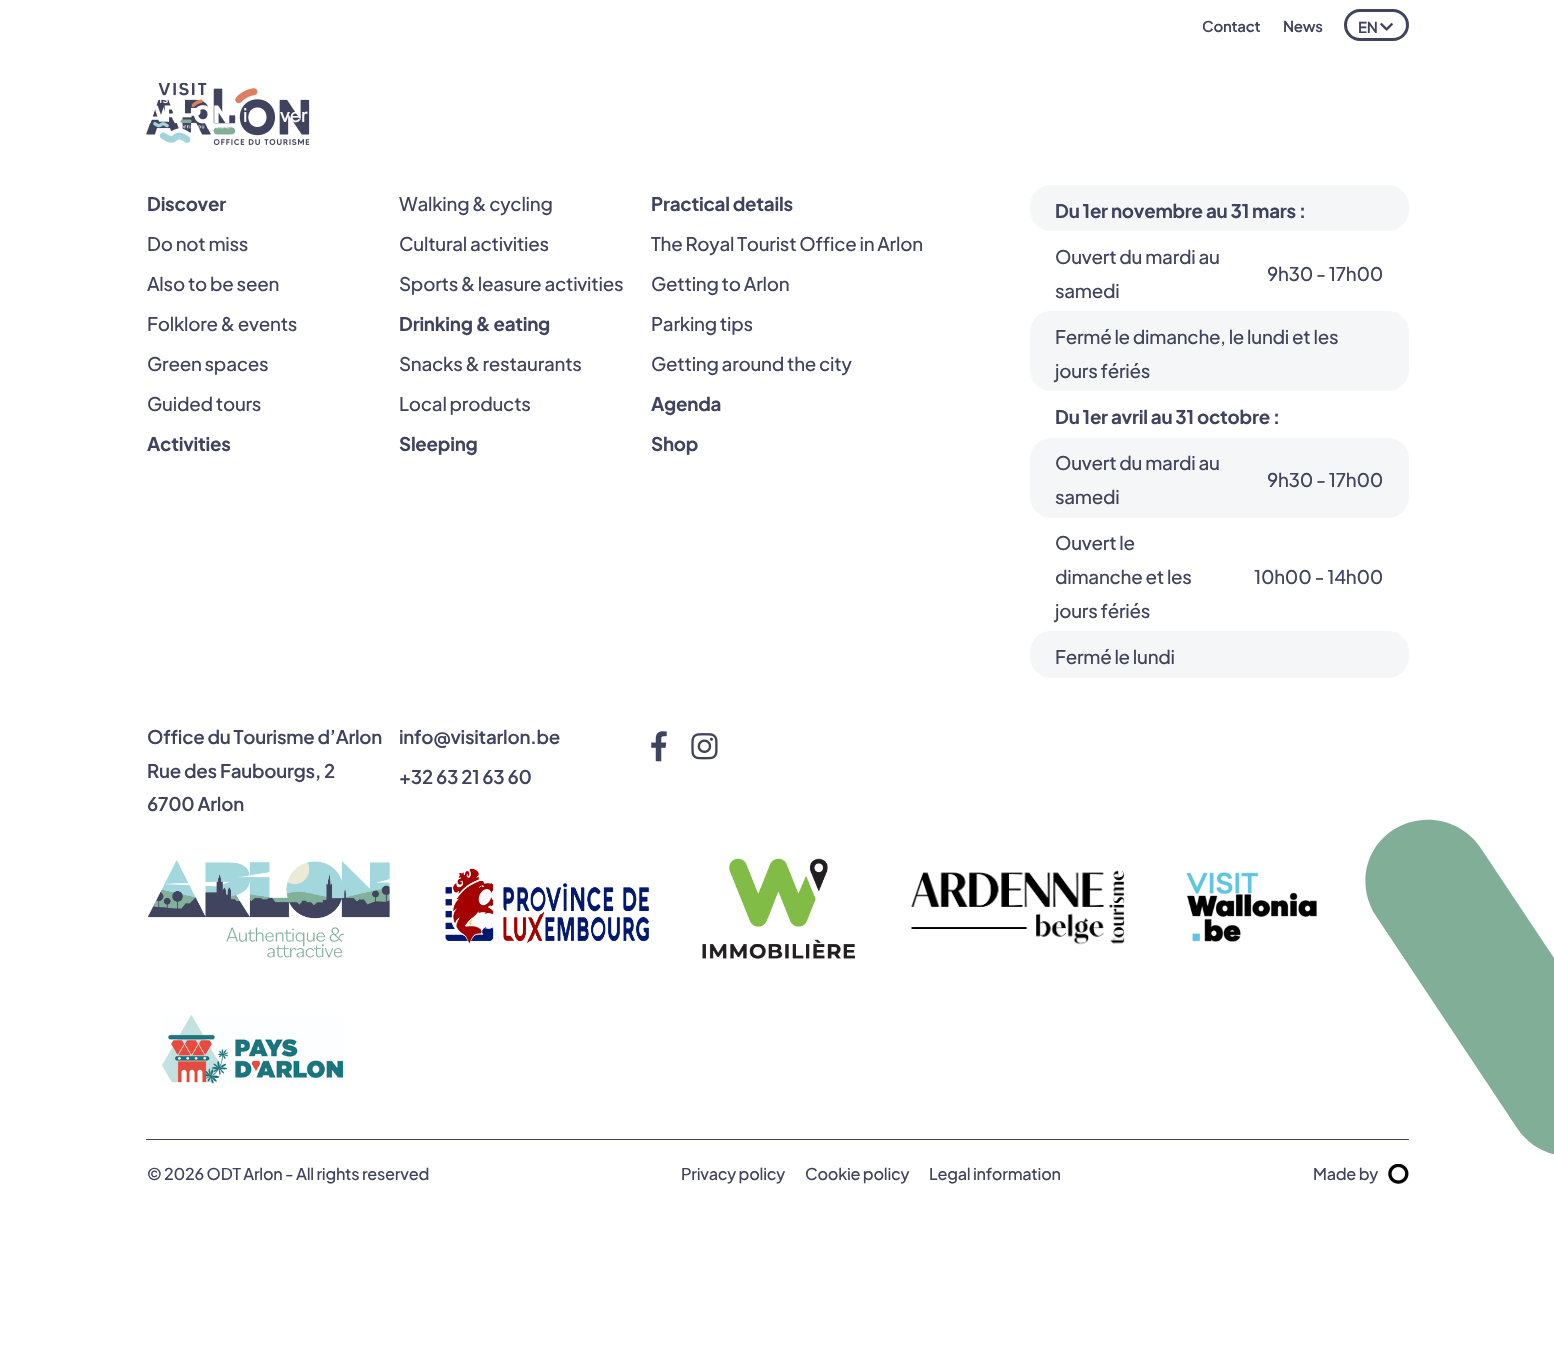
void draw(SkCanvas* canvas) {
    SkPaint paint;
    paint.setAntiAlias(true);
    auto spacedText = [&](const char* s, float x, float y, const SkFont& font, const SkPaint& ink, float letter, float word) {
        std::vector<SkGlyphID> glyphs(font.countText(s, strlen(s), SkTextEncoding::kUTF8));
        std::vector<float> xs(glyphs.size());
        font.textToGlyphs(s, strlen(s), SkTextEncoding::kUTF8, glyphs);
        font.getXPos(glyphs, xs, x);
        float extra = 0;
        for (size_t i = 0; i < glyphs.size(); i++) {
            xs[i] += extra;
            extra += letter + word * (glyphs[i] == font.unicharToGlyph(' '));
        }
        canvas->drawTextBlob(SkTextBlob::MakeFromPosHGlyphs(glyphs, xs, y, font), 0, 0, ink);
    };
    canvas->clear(0xFFFFFFFF);
    SkFont font1(fontMgr->matchFamilyStyle("Plus Jakarta Sans", SkFontStyle(600, SkFontStyle::kNormal_Width, SkFontStyle::kUpright_Slant)), 15);
    font1.setSubpixel(true);
    paint.setColor(0xFF40435E);
    spacedText("Contact", 1202, 32, font1, paint, -0.25f, 0);
    spacedText("News", 1283, 32, font1, paint, -0.25f, 0);
    paint.setStyle(SkPaint::kStroke_Style);
    paint.setStrokeWidth(3);
    canvas->drawRoundRect(SkRect::MakeXYWH(1345.5f, 10.5f, 62, 29), 14.5f, 14.5f, paint);
    paint.setStyle(SkPaint::kFill_Style);
    spacedText("EN", 1358, 33, font1, paint, -0.25f, 0);
    canvas->drawImageRect(SkImages::DeferredFromEncodedData(SkData::MakeFromFileName("img1.png")), SkRect::MakeXYWH(1380, 23, 13, 8), SkSamplingOptions());
    canvas->drawImageRect(SkImages::DeferredFromEncodedData(SkData::MakeFromFileName("img3.png")), SkRect::MakeXYWH(146, 83, 164, 62), SkSamplingOptions());
    canvas->drawImageRect(SkImages::DeferredFromEncodedData(SkData::MakeFromFileName("img2.png")), SkRect::MakeXYWH(150, 99, 80, 30), SkSamplingOptions());
    SkFont font2(fontMgr->matchFamilyStyle("Plus Jakarta Sans", SkFontStyle(500, SkFontStyle::kNormal_Width, SkFontStyle::kUpright_Slant)), 18.75f);
    font2.setSubpixel(true);
    paint.setColor(0xFFFFFFFF);
    spacedText("i", 243, 122, font2, paint, -0.25f, 0);
    spacedText("ver", 280, 122, font2, paint, -0.25f, 0);
    paint.setColor(0xFF40435E);
    spacedText("Walking & cycling", 399, 211, font2, paint, -0.25f, 0);
    spacedText("Cultural activities", 399, 251, font2, paint, -0.25f, 0);
    spacedText("Sports & leasure activities", 399, 291, font2, paint, -0.25f, 0);
    SkFont font3(fontMgr->matchFamilyStyle("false", SkFontStyle::Bold()), 18.75f);
    font3.setSubpixel(true);
    spacedText("Activities", 147, 451, font3, paint, -0.25f, 0);
    spacedText("Practical details", 651, 211, font3, paint, -0.25f, 0);
    spacedText("The Royal Tourist Office in Arlon", 651, 251, font2, paint, -0.25f, 0);
    spacedText("Getting to Arlon", 651, 291, font2, paint, -0.25f, 0);
    spacedText("Parking tips", 651, 331, font2, paint, -0.25f, 0);
    spacedText("Getting around the city", 651, 371, font2, paint, -0.25f, 0);
    spacedText("Discover", 147, 211, font3, paint, -0.25f, 0);
    spacedText("Do not miss", 147, 251, font2, paint, -0.25f, 0);
    spacedText("Also to be seen", 147, 291, font2, paint, -0.25f, 0);
    spacedText("Folklore & events", 147, 331, font2, paint, -0.25f, 0);
    spacedText("Green spaces", 147, 371, font2, paint, -0.25f, 0);
    spacedText("Guided tours", 147, 411, font2, paint, -0.25f, 0);
    spacedText("Drinking & eating", 399, 331, font3, paint, -0.25f, 0);
    spacedText("Snacks & restaurants", 399, 371, font2, paint, -0.25f, 0);
    spacedText("Local products", 399, 411, font2, paint, -0.25f, 0);
    spacedText("Agenda", 651, 411, font3, paint, -0.25f, 0);
    spacedText("Sleeping", 399, 451, font3, paint, -0.25f, 0);
    spacedText("Shop", 651, 451, font3, paint, -0.25f, 0);
    paint.setColor(0xFFF5F6F7);
    canvas->drawRoundRect(SkRect::MakeXYWH(1030, 185, 379, 46), 21, 21, paint);
    paint.setColor(0xFF40435E);
    spacedText("Du 1er novembre au 31 mars :", 1055, 218, font3, paint, -0.25f, 0);
    spacedText("Ouvert du mardi au", 1055, 264, font2, paint, -0.25f, 0);
    spacedText("samedi", 1055, 298, font2, paint, -0.25f, 0);
    spacedText("9h30 - 17h00", 1267, 281, font2, paint, -0.25f, 0);
    paint.setColor(0xFFF5F6F7);
    canvas->drawRoundRect(SkRect::MakeXYWH(1030, 311, 379, 80), 21, 21, paint);
    paint.setColor(0xFF40435E);
    spacedText("Fermé le dimanche, le lundi et les", 1055, 344, font2, paint, -0.25f, 0);
    spacedText("jours fériés", 1055, 378, font2, paint, -0.25f, 0);
    spacedText("Du 1er avril au 31 octobre :", 1055, 424, font3, paint, -0.25f, 0);
    paint.setColor(0xFFF5F6F7);
    canvas->drawRoundRect(SkRect::MakeXYWH(1030, 438, 379, 80), 21, 21, paint);
    paint.setColor(0xFF40435E);
    spacedText("Ouvert du mardi au", 1055, 470, font2, paint, -0.25f, 0);
    spacedText("samedi", 1055, 504, font2, paint, -0.25f, 0);
    spacedText("9h30 - 17h00", 1267, 487, font2, paint, -0.25f, 0);
    spacedText("Ouvert le", 1055, 550, font2, paint, -0.25f, 0);
    spacedText("dimanche et les", 1055, 584, font2, paint, -0.25f, 0);
    spacedText("jours fériés", 1055, 618, font2, paint, -0.25f, 0);
    spacedText("10h00 - 14h00", 1254, 584, font2, paint, -0.25f, 0);
    paint.setColor(0xFFF5F6F7);
    canvas->drawRoundRect(SkRect::MakeXYWH(1030, 631, 379, 47), 21, 21, paint);
    paint.setColor(0xFF40435E);
    spacedText("Fermé le lundi", 1055, 664, font2, paint, -0.25f, 0);
    SkFont font4(fontMgr->matchFamilyStyle("Plus Jakarta Sans", SkFontStyle(600, SkFontStyle::kNormal_Width, SkFontStyle::kUpright_Slant)), 18.75f);
    font4.setSubpixel(true);
    spacedText("Office du Tourisme d’Arlon", 147, 744, font4, paint, -0.25f, 0);
    spacedText("Rue des Faubourgs, 2", 147, 778, font4, paint, -0.25f, 0);
    spacedText("6700 Arlon", 147, 811, font4, paint, -0.25f, 0);
    spacedText("info@visitarlon.be", 399, 744, font4, paint, -0.25f, 0);
    spacedText("+32 63 21 63 60", 399, 784, font4, paint, -0.25f, 0);
    canvas->drawImageRect(SkImages::DeferredFromEncodedData(SkData::MakeFromFileName("img4.png")), SkRect::MakeXYWH(651, 731, 16, 31), SkSamplingOptions());
    canvas->drawImageRect(SkImages::DeferredFromEncodedData(SkData::MakeFromFileName("img5.png")), SkRect::MakeXYWH(691, 733, 27, 27), SkSamplingOptions());
    canvas->drawImageRect(SkImages::DeferredFromEncodedData(SkData::MakeFromFileName("img6.png")), SkRect::MakeXYWH(148, 860, 242, 98), SkSamplingOptions());
    canvas->drawImageRect(SkImages::DeferredFromEncodedData(SkData::MakeFromFileName("img7.png")), SkRect::MakeXYWH(445, 868, 205, 76), SkSamplingOptions());
    canvas->drawImageRect(SkImages::DeferredFromEncodedData(SkData::MakeFromFileName("img8.png")), SkRect::MakeXYWH(702, 858, 153, 101), SkSamplingOptions());
    canvas->drawImageRect(SkImages::DeferredFromEncodedData(SkData::MakeFromFileName("img9.png")), SkRect::MakeXYWH(911, 870, 214, 75), SkSamplingOptions());
    canvas->drawImageRect(SkImages::DeferredFromEncodedData(SkData::MakeFromFileName("img10.png")), SkRect::MakeXYWH(1186, 872, 131, 70), SkSamplingOptions());
    canvas->drawImageRect(SkImages::DeferredFromEncodedData(SkData::MakeFromFileName("img11.png")), SkRect::MakeXYWH(161, 1015, 183, 69), SkSamplingOptions());
    paint.setColor(0xFF80AE97);
    canvas->drawPath(SkPathBuilder(SkPathFillType::kEvenOdd).moveTo(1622, 1060).cubicTo(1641, 1088, 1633, 1127, 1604, 1146).cubicTo(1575, 1165, 1536, 1157, 1517, 1128).lineTo(1376, 916).cubicTo(1357, 887, 1364, 849, 1393, 830).cubicTo(1422, 811, 1461, 819, 1480, 847).lineTo(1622, 1060).detach(), paint);
    paint.setColor(0xFF40435E);
    canvas->drawRect(SkRect::MakeXYWH(146, 1139, 1263, 1), paint);
    SkFont font5(fontMgr->matchFamilyStyle("Plus Jakarta Sans", SkFontStyle(500, SkFontStyle::kNormal_Width, SkFontStyle::kUpright_Slant)), 16.25f);
    font5.setSubpixel(true);
    spacedText("© 2026 ODT Arlon - All rights reserved", 147, 1180, font5, paint, -0.25f, 0);
    spacedText("Privacy policy", 681, 1180, font5, paint, -0.25f, 0);
    spacedText("Cookie policy", 805, 1180, font5, paint, -0.25f, 0);
    spacedText("Legal information", 929, 1180, font5, paint, -0.25f, 0);
    spacedText("Made by", 1313, 1180, font5, paint, -0.25f, 0);
    canvas->drawImageRect(SkImages::DeferredFromEncodedData(SkData::MakeFromFileName("img12.png")), SkRect::MakeXYWH(1388, 1164, 21, 20), SkSamplingOptions());
}
